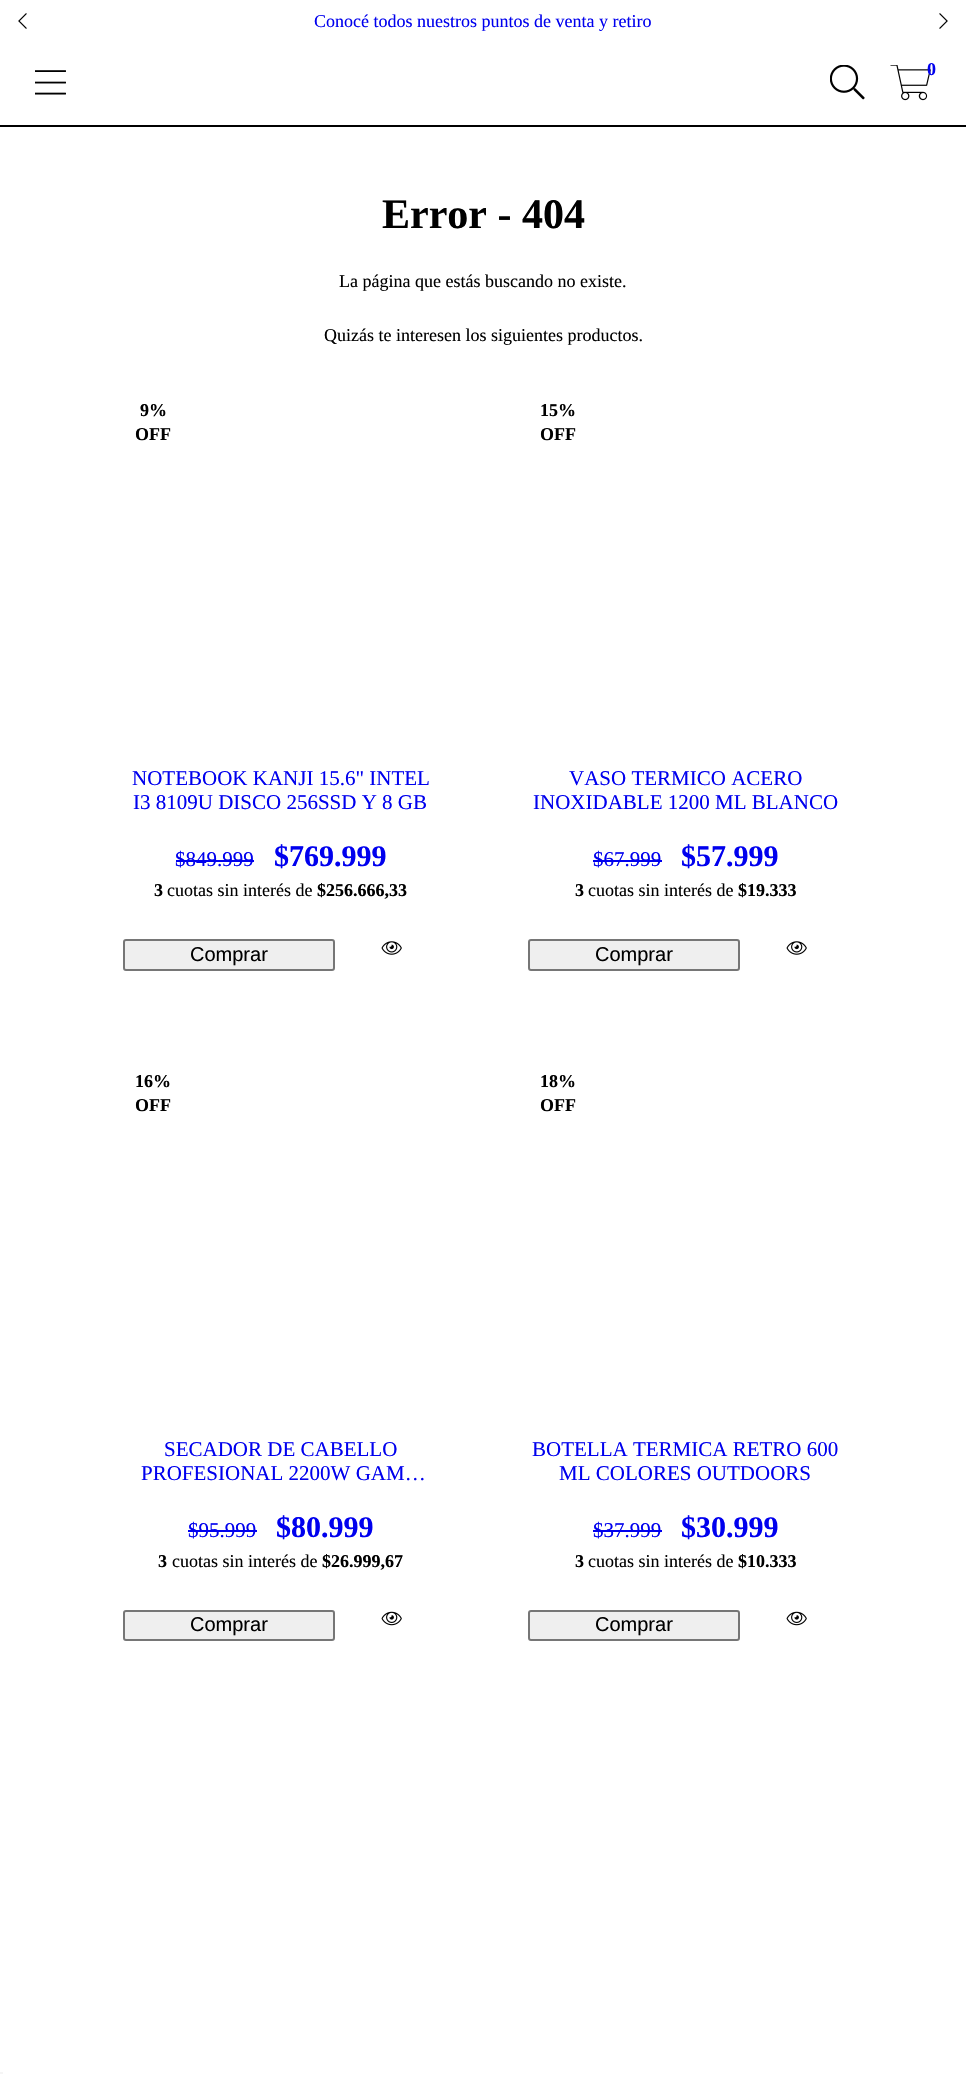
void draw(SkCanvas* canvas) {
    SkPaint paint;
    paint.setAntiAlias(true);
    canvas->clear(0xFFFFFFFF);
    canvas->drawImageRect(SkImages::DeferredFromEncodedData(SkData::MakeFromFileName("img1.png")), SkRect::MakeXYWH(18, 13, 9, 16), SkSamplingOptions());
    SkFont font1(fontMgr->matchFamilyStyle("Liberation Serif", SkFontStyle::Normal()), 18);
    font1.setSubpixel(true);
    paint.setColor(0xFF0000EE);
    canvas->drawString("Conocé todos nuestros puntos de venta y retiro", 314, 27, font1, paint);
    canvas->drawImageRect(SkImages::DeferredFromEncodedData(SkData::MakeFromFileName("img2.png")), SkRect::MakeXYWH(939, 13, 9, 16), SkSamplingOptions());
    canvas->drawImageRect(SkImages::DeferredFromEncodedData(SkData::MakeFromFileName("img3.png")), SkRect::MakeXYWH(35, 70, 31, 25), SkSamplingOptions());
    canvas->drawImageRect(SkImages::DeferredFromEncodedData(SkData::MakeFromFileName("img4.png")), SkRect::MakeXYWH(830, 65, 35, 35), SkSamplingOptions());
    canvas->drawImageRect(SkImages::DeferredFromEncodedData(SkData::MakeFromFileName("img5.png")), SkRect::MakeXYWH(890, 65, 41, 36), SkSamplingOptions());
    SkFont font2(fontMgr->matchFamilyStyle("Liberation Serif", SkFontStyle::Bold()), 18);
    font2.setSubpixel(true);
    canvas->drawString("0", 927, 75, font2, paint);
    paint.setColor(0xFF000000);
    canvas->drawRect(SkRect::MakeXYWH(0, 125, 966, 2), paint);
    SkFont font3(fontMgr->matchFamilyStyle("Liberation Serif", SkFontStyle::Bold()), 42);
    font3.setSubpixel(true);
    canvas->drawString("Error - 404", 382, 228, font3, paint);
    canvas->drawString("La página que estás buscando no existe.", 339, 287, font1, paint);
    canvas->drawString("Quizás te interesen los siguientes productos.", 324, 341, font1, paint);
    canvas->drawString("9%", 140, 416, font2, paint);
    canvas->drawString("OFF", 135, 440, font2, paint);
    SkFont font4(fontMgr->matchFamilyStyle("Liberation Serif", SkFontStyle::Normal()), 21);
    font4.setSubpixel(true);
    paint.setColor(0xFF0000EE);
    canvas->drawString("NOTEBOOK KANJI 15.6\" INTEL", 132, 785, font4, paint);
    canvas->drawString("I3 8109U DISCO 256SSD Y 8 GB", 133, 809, font4, paint);
    canvas->drawString("$849.999", 175, 866, font4, paint);
    canvas->drawRect(SkRect::MakeXYWH(176, 860, 78, 2), paint);
    SkFont font5(fontMgr->matchFamilyStyle("Liberation Serif", SkFontStyle::Bold()), 30);
    font5.setSubpixel(true);
    canvas->drawString("$769.999", 274, 866, font5, paint);
    paint.setColor(0xFF000000);
    canvas->drawString("3", 154, 896, font2, paint);
    canvas->drawString("cuotas sin interés de", 167, 896, font1, paint);
    canvas->drawString("$256.666,33", 317, 896, font2, paint);
    paint.setColor(0xFFEFEFEF);
    canvas->drawRoundRect(SkRect::MakeXYWH(124, 940, 210, 30), 2, 2, paint);
    paint.setStyle(SkPaint::kStroke_Style);
    paint.setStrokeWidth(2);
    paint.setColor(0xFF767676);
    canvas->drawRoundRect(SkRect::MakeXYWH(124, 940, 210, 30), 2, 2, paint);
    SkFont font6(fontMgr->matchFamilyStyle("Liberation Sans", SkFontStyle::Normal()), 20);
    font6.setSubpixel(true);
    paint.setStyle(SkPaint::kFill_Style);
    paint.setColor(0xFF000000);
    canvas->drawString("Comprar", 190, 961, font6, paint);
    canvas->drawImageRect(SkImages::DeferredFromEncodedData(SkData::MakeFromFileName("img6.png")), SkRect::MakeXYWH(381, 941, 21, 14), SkSamplingOptions());
    canvas->drawString("15%", 540, 416, font2, paint);
    canvas->drawString("OFF", 540, 440, font2, paint);
    paint.setColor(0xFF0000EE);
    canvas->drawString("VASO TERMICO ACERO", 569, 785, font4, paint);
    canvas->drawString("INOXIDABLE 1200 ML BLANCO", 533, 809, font4, paint);
    canvas->drawString("$67.999", 593, 866, font4, paint);
    canvas->drawRect(SkRect::MakeXYWH(593, 860, 69, 2), paint);
    canvas->drawString("$57.999", 681, 866, font5, paint);
    paint.setColor(0xFF000000);
    canvas->drawString("3", 575, 896, font2, paint);
    canvas->drawString("cuotas sin interés de", 588, 896, font1, paint);
    canvas->drawString("$19.333", 738, 896, font2, paint);
    paint.setColor(0xFFEFEFEF);
    canvas->drawRoundRect(SkRect::MakeXYWH(529, 940, 210, 30), 2, 2, paint);
    paint.setStyle(SkPaint::kStroke_Style);
    paint.setColor(0xFF767676);
    canvas->drawRoundRect(SkRect::MakeXYWH(529, 940, 210, 30), 2, 2, paint);
    paint.setStyle(SkPaint::kFill_Style);
    paint.setColor(0xFF000000);
    canvas->drawString("Comprar", 595, 961, font6, paint);
    canvas->drawImageRect(SkImages::DeferredFromEncodedData(SkData::MakeFromFileName("img6.png")), SkRect::MakeXYWH(786, 941, 21, 14), SkSamplingOptions());
    canvas->drawString("16%", 135, 1087, font2, paint);
    canvas->drawString("OFF", 135, 1111, font2, paint);
    paint.setColor(0xFF0000EE);
    canvas->drawString("SECADOR DE CABELLO", 164, 1456, font4, paint);
    canvas->drawString("PROFESIONAL 2200W GAM…", 141, 1480, font4, paint);
    canvas->drawString("$95.999", 188, 1537, font4, paint);
    canvas->drawRect(SkRect::MakeXYWH(188, 1530, 69, 2), paint);
    canvas->drawString("$80.999", 276, 1537, font5, paint);
    paint.setColor(0xFF000000);
    canvas->drawString("3", 158, 1567, font2, paint);
    canvas->drawString("cuotas sin interés de", 172, 1567, font1, paint);
    canvas->drawString("$26.999,67", 322, 1567, font2, paint);
    paint.setColor(0xFFEFEFEF);
    canvas->drawRoundRect(SkRect::MakeXYWH(124, 1611, 210, 29), 2, 2, paint);
    paint.setStyle(SkPaint::kStroke_Style);
    paint.setColor(0xFF767676);
    canvas->drawRoundRect(SkRect::MakeXYWH(124, 1611, 210, 29), 2, 2, paint);
    paint.setStyle(SkPaint::kFill_Style);
    paint.setColor(0xFF000000);
    canvas->drawString("Comprar", 190, 1631, font6, paint);
    canvas->drawImageRect(SkImages::DeferredFromEncodedData(SkData::MakeFromFileName("img7.png")), SkRect::MakeXYWH(381, 1611, 21, 15), SkSamplingOptions());
    canvas->drawString("18%", 540, 1087, font2, paint);
    canvas->drawString("OFF", 540, 1111, font2, paint);
    paint.setColor(0xFF0000EE);
    canvas->drawString("BOTELLA TERMICA RETRO 600", 532, 1456, font4, paint);
    canvas->drawString("ML COLORES OUTDOORS", 559, 1480, font4, paint);
    canvas->drawString("$37.999", 593, 1537, font4, paint);
    canvas->drawRect(SkRect::MakeXYWH(593, 1530, 69, 2), paint);
    canvas->drawString("$30.999", 681, 1537, font5, paint);
    paint.setColor(0xFF000000);
    canvas->drawString("3", 575, 1567, font2, paint);
    canvas->drawString("cuotas sin interés de", 588, 1567, font1, paint);
    canvas->drawString("$10.333", 738, 1567, font2, paint);
    paint.setColor(0xFFEFEFEF);
    canvas->drawRoundRect(SkRect::MakeXYWH(529, 1611, 210, 29), 2, 2, paint);
    paint.setStyle(SkPaint::kStroke_Style);
    paint.setColor(0xFF767676);
    canvas->drawRoundRect(SkRect::MakeXYWH(529, 1611, 210, 29), 2, 2, paint);
    paint.setStyle(SkPaint::kFill_Style);
    paint.setColor(0xFF000000);
    canvas->drawString("Comprar", 595, 1631, font6, paint);
    canvas->drawImageRect(SkImages::DeferredFromEncodedData(SkData::MakeFromFileName("img7.png")), SkRect::MakeXYWH(786, 1611, 21, 15), SkSamplingOptions());
    paint.setColor(0xFFF5F5F5);
    canvas->drawRect(SkRect::MakeXYWH(0, 2072, 3, 2), paint);
}
